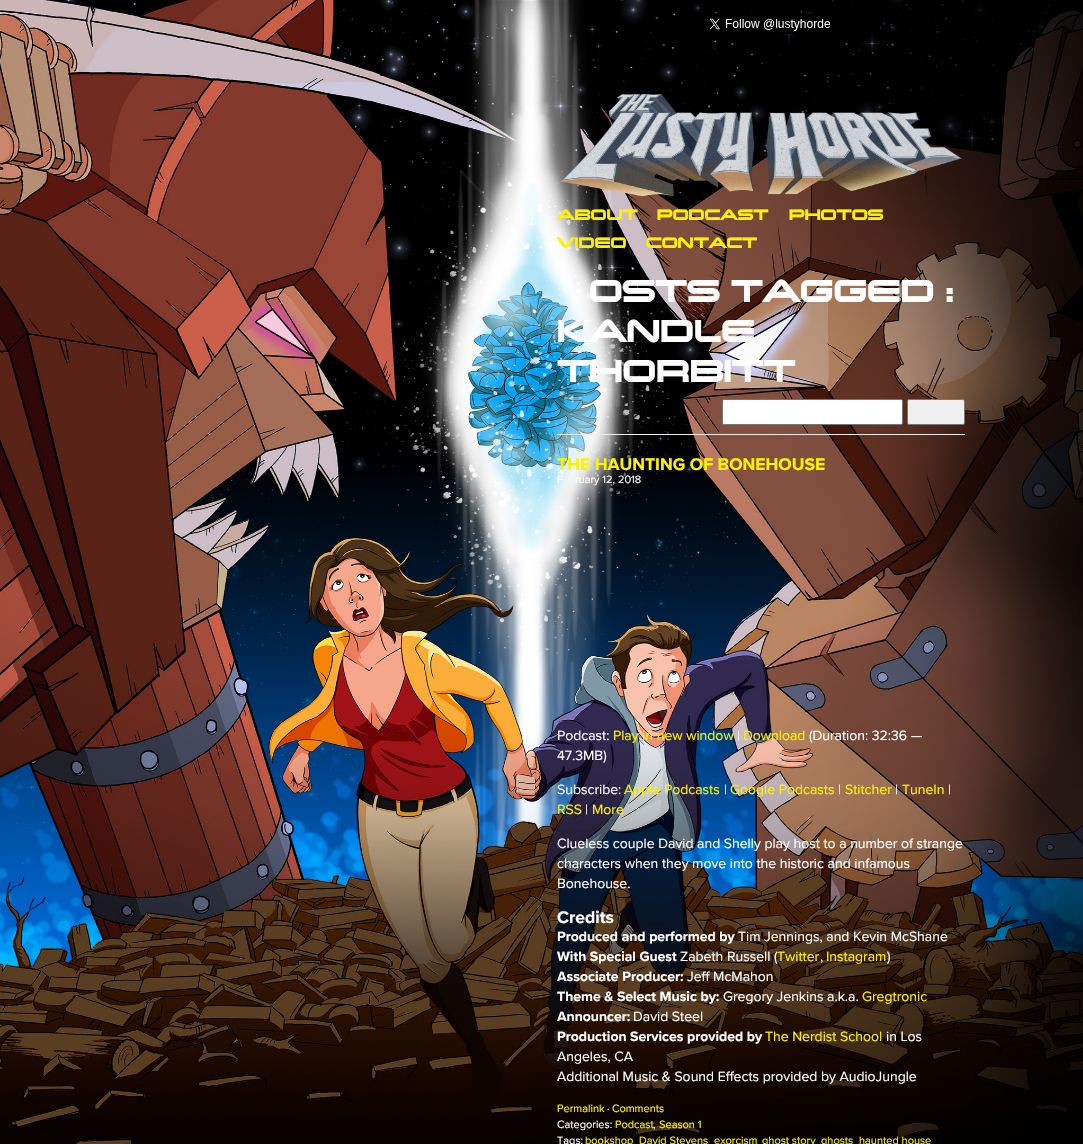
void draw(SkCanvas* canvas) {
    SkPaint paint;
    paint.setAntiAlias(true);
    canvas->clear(0xFFFFFFFF);
    canvas->drawImageRect(SkImages::DeferredFromEncodedData(SkData::MakeFromFileName("img1.png")), SkRect::MakeXYWH(0, 0, 1083, 1144), SkSamplingOptions());
    canvas->drawImageRect(SkImages::DeferredFromEncodedData(SkData::MakeFromFileName("img2.png")), SkRect::MakeXYWH(709, 14, 122, 20), SkSamplingOptions());
    canvas->drawImageRect(SkImages::DeferredFromEncodedData(SkData::MakeFromFileName("img3.png")), SkRect::MakeXYWH(561, 93, 401, 104), SkSamplingOptions());
    SkFont font1(fontMgr->matchFamilyStyle("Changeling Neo", SkFontStyle::Bold()), 19);
    font1.setSubpixel(true);
    paint.setColor(0xFFFFF200);
    canvas->drawString("ABOUT", 557, 220, font1, paint);
    canvas->drawString("PODCAST", 657, 220, font1, paint);
    canvas->drawString("PHOTOS", 789, 220, font1, paint);
    canvas->drawString("VIDEO", 557, 248, font1, paint);
    canvas->drawString("CONTACT", 646, 248, font1, paint);
    paint.setColor(0xFFEEEEEE);
    canvas->drawRect(SkRect::MakeXYWH(557, 434, 408, 1), paint);
    SkFont font2(fontMgr->matchFamilyStyle("Changeling Neo", SkFontStyle::Bold()), 40);
    font2.setSubpixel(true);
    paint.setColor(0xFFFFFFFF);
    canvas->drawString("OSTS TAGGED :", 589, 302, font2, paint);
    canvas->drawString("KANDLE", 557, 342, font2, paint);
    canvas->drawString("THORBITT", 557, 382, font2, paint);
    canvas->drawRoundRect(SkRect::MakeXYWH(722.5f, 399.5f, 180, 25), 1.5f, 1.5f, paint);
    paint.setStyle(SkPaint::kStroke_Style);
    paint.setStrokeWidth(1);
    paint.setColor(0xFF767676);
    canvas->drawRoundRect(SkRect::MakeXYWH(722.5f, 399.5f, 180, 25), 1.5f, 1.5f, paint);
    paint.setStyle(SkPaint::kFill_Style);
    paint.setColor(0xFFEFEFEF);
    canvas->drawRoundRect(SkRect::MakeXYWH(907.5f, 399.5f, 57, 25), 1.5f, 1.5f, paint);
    paint.setStyle(SkPaint::kStroke_Style);
    paint.setColor(0xFF767676);
    canvas->drawRoundRect(SkRect::MakeXYWH(907.5f, 399.5f, 57, 25), 1.5f, 1.5f, paint);
    SkFont font3(fontMgr->matchFamilyStyle("Proxima Nova", SkFontStyle::Bold()), 17.5f);
    font3.setSubpixel(true);
    paint.setStyle(SkPaint::kFill_Style);
    paint.setColor(0xFFFFF200);
    canvas->drawString("THE HAUNTING OF BONEHOUSE", 557, 470, font3, paint);
    SkFont font4(fontMgr->matchFamilyStyle("Proxima Nova", SkFontStyle::Normal()), 11);
    font4.setSubpixel(true);
    paint.setColor(0xFFFFFFFF);
    canvas->drawString("F", 557, 483, font4, paint);
    canvas->drawString("ruary 12, 2018", 575, 483, font4, paint);
    SkFont font5(fontMgr->matchFamilyStyle("Proxima Nova", SkFontStyle::Normal()), 14);
    font5.setSubpixel(true);
    canvas->drawString("Podcast:", 557, 740, font5, paint);
    paint.setColor(0xFFFFF200);
    canvas->drawString("Play in new window", 613, 740, font5, paint);
    paint.setColor(0xFFFFFFFF);
    canvas->drawString("|", 737, 740, font5, paint);
    paint.setColor(0xFFFFF200);
    canvas->drawString("Download", 743, 740, font5, paint);
    paint.setColor(0xFFFFFFFF);
    canvas->drawString("(Duration: 32:36 —", 809, 740, font5, paint);
    canvas->drawString("47.3MB)", 557, 760, font5, paint);
    canvas->drawString("Subscribe:", 557, 794, font5, paint);
    paint.setColor(0xFFFFF200);
    canvas->drawString("Apple Podcasts", 624, 794, font5, paint);
    paint.setColor(0xFFFFFFFF);
    canvas->drawString("|", 724, 794, font5, paint);
    paint.setColor(0xFFFFF200);
    canvas->drawString("Google Podcasts", 730, 794, font5, paint);
    paint.setColor(0xFFFFFFFF);
    canvas->drawString("|", 838, 794, font5, paint);
    paint.setColor(0xFFFFF200);
    canvas->drawString("Stitcher", 845, 794, font5, paint);
    paint.setColor(0xFFFFFFFF);
    canvas->drawString("|", 895, 794, font5, paint);
    paint.setColor(0xFFFFF200);
    canvas->drawString("TuneIn", 902, 794, font5, paint);
    paint.setColor(0xFFFFFFFF);
    canvas->drawString("|", 948, 794, font5, paint);
    paint.setColor(0xFFFFF200);
    canvas->drawString("RSS", 557, 814, font5, paint);
    paint.setColor(0xFFFFFFFF);
    canvas->drawString("|", 585, 814, font5, paint);
    paint.setColor(0xFFFFF200);
    canvas->drawString("More", 592, 814, font5, paint);
    paint.setColor(0xFFFFFFFF);
    canvas->drawString("Clueless couple David and Shelly play host to a number of strange", 557, 848, font5, paint);
    canvas->drawString("characters when they move into the historic and infamous", 557, 868, font5, paint);
    canvas->drawString("Bonehouse.", 557, 888, font5, paint);
    canvas->drawString("Credits", 557, 923, font3, paint);
    SkFont font6(fontMgr->matchFamilyStyle("Proxima Nova", SkFontStyle::Bold()), 14);
    font6.setSubpixel(true);
    canvas->drawString("Produced and performed by", 557, 941, font6, paint);
    canvas->drawString("Tim Jennings, and Kevin McShane", 738, 941, font5, paint);
    canvas->drawString("With Special Guest", 557, 961, font6, paint);
    canvas->drawString("Zabeth Russell (", 680, 961, font5, paint);
    paint.setColor(0xFFFFF200);
    canvas->drawString("Twitter", 777, 961, font5, paint);
    paint.setColor(0xFFFFFFFF);
    canvas->drawString(",", 820, 961, font5, paint);
    paint.setColor(0xFFFFF200);
    canvas->drawString("Instagram", 826, 961, font5, paint);
    paint.setColor(0xFFFFFFFF);
    canvas->drawString(")", 887, 961, font5, paint);
    canvas->drawString("Associate Producer:", 557, 981, font6, paint);
    canvas->drawString("Jeff McMahon", 687, 981, font5, paint);
    canvas->drawString("Theme & Select Music by:", 557, 1001, font6, paint);
    canvas->drawString("Gregory Jenkins a.k.a.", 723, 1001, font5, paint);
    paint.setColor(0xFFFFF200);
    canvas->drawString("Gregtronic", 862, 1001, font5, paint);
    paint.setColor(0xFFFFFFFF);
    canvas->drawString("Announcer:", 557, 1021, font6, paint);
    canvas->drawString("David Steel", 633, 1021, font5, paint);
    canvas->drawString("Production Services provided by", 557, 1041, font6, paint);
    paint.setColor(0xFFFFF200);
    canvas->drawString("The Nerdist School", 765, 1041, font5, paint);
    paint.setColor(0xFFFFFFFF);
    canvas->drawString("in Los", 886, 1041, font5, paint);
    canvas->drawString("Angeles, CA", 557, 1061, font5, paint);
    canvas->drawString("Additional Music & Sound Effects provided by AudioJungle", 557, 1081, font5, paint);
    paint.setColor(0xFFFFF200);
    canvas->drawString("Permalink", 557, 1112, font4, paint);
    paint.setColor(0xFFFFFFFF);
    canvas->drawString("·", 607, 1112, font4, paint);
    paint.setColor(0xFFFFF200);
    canvas->drawString("Comments", 612, 1112, font4, paint);
    paint.setColor(0xFFFFFFFF);
    canvas->drawString("Categories:", 557, 1128, font4, paint);
    paint.setColor(0xFFFFF200);
    canvas->drawString("Podcast", 615, 1128, font4, paint);
    paint.setColor(0xFFFFFFFF);
    canvas->drawString(",", 653, 1128, font4, paint);
    paint.setColor(0xFFFFF200);
    canvas->drawString("Season 1", 659, 1128, font4, paint);
    paint.setColor(0xFFFFFFFF);
    canvas->drawString("Tags:", 557, 1144, font4, paint);
    paint.setColor(0xFFFFF200);
    canvas->drawString("bookshop", 585, 1144, font4, paint);
    canvas->drawString("David Stevens", 639, 1144, font4, paint);
    canvas->drawString("exorcism", 714, 1144, font4, paint);
    canvas->drawString("ghost story", 762, 1144, font4, paint);
    canvas->drawString("ghosts", 821, 1144, font4, paint);
    canvas->drawString("haunted house", 859, 1144, font4, paint);
}
